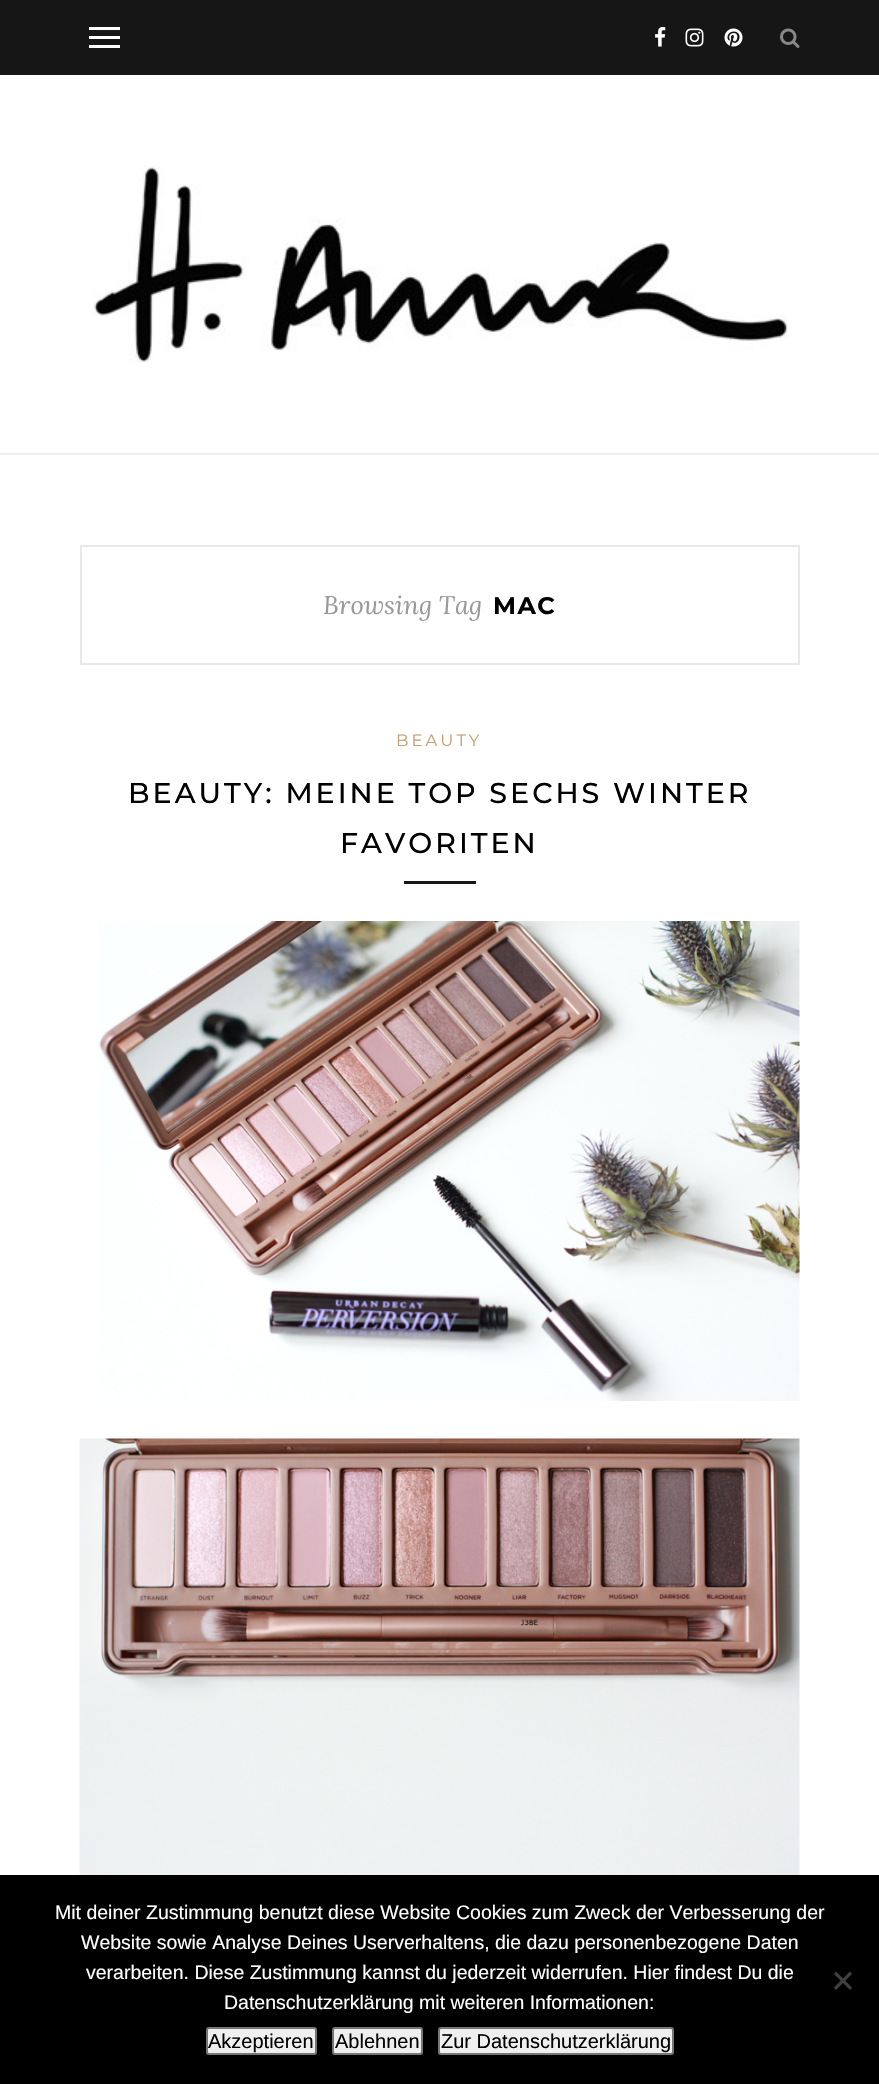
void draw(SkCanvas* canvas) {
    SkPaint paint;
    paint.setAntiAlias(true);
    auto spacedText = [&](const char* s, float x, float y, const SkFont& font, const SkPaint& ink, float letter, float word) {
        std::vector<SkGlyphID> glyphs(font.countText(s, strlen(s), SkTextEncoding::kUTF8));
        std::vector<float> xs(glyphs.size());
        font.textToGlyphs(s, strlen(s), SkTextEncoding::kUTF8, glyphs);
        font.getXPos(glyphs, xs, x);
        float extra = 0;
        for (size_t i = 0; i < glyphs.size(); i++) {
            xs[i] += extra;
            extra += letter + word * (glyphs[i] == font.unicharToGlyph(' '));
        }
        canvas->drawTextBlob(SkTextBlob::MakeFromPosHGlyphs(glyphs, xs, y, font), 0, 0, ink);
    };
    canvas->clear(0xFFFFFFFF);
    paint.setColor(0xFF161616);
    canvas->drawRect(SkRect::MakeXYWH(0, 0, 879, 75), paint);
    paint.setColor(0xFFFFFFFF);
    canvas->drawRect(SkRect::MakeXYWH(89, 27, 31, 3), paint);
    canvas->drawRect(SkRect::MakeXYWH(89, 36, 31, 3), paint);
    canvas->drawRect(SkRect::MakeXYWH(89, 45, 31, 3), paint);
    canvas->drawImageRect(SkImages::DeferredFromEncodedData(SkData::MakeFromFileName("img1.png")), SkRect::MakeXYWH(655, 27, 11, 20), SkSamplingOptions());
    canvas->drawImageRect(SkImages::DeferredFromEncodedData(SkData::MakeFromFileName("img2.png")), SkRect::MakeXYWH(685, 28, 19, 19), SkSamplingOptions());
    canvas->drawImageRect(SkImages::DeferredFromEncodedData(SkData::MakeFromFileName("img3.png")), SkRect::MakeXYWH(724, 28, 19, 19), SkSamplingOptions());
    canvas->drawImageRect(SkImages::DeferredFromEncodedData(SkData::MakeFromFileName("img4.png")), SkRect::MakeXYWH(780, 28, 20, 20), SkSamplingOptions());
    paint.setColor(0xFFEEEEEE);
    canvas->drawRect(SkRect::MakeXYWH(0, 453, 879, 2), paint);
    canvas->drawImageRect(SkImages::DeferredFromEncodedData(SkData::MakeFromFileName("img5.png")), SkRect::MakeXYWH(93, 165, 695, 198), SkSamplingOptions());
    paint.setStyle(SkPaint::kStroke_Style);
    paint.setStrokeWidth(2);
    paint.setColor(0xFFE8E8E8);
    canvas->drawRect(SkRect::MakeXYWH(81, 546, 718, 118), paint);
    SkFont font1(fontMgr->matchFamilyStyle("Lora", SkFontStyle::Italic()), 25.5f);
    font1.setSubpixel(true);
    paint.setStyle(SkPaint::kFill_Style);
    paint.setColor(0xFF999999);
    canvas->drawString("Browsing Tag", 323, 614, font1, paint);
    SkFont font2(fontMgr->matchFamilyStyle("Montserrat", SkFontStyle::Bold()), 24);
    font2.setSubpixel(true);
    paint.setColor(0xFF000000);
    spacedText("MAC", 493, 614, font2, paint, 1.5f, 0);
    SkFont font3(fontMgr->matchFamilyStyle("Montserrat", SkFontStyle::Normal()), 16.5f);
    font3.setSubpixel(true);
    paint.setColor(0xFFC39F76);
    spacedText("BEAUTY", 396, 746, font3, paint, 3, 0);
    SkFont font4(fontMgr->matchFamilyStyle("Montserrat", SkFontStyle(500, SkFontStyle::kNormal_Width, SkFontStyle::kUpright_Slant)), 28.5f);
    font4.setSubpixel(true);
    paint.setColor(0xFF000000);
    spacedText("BEAUTY: MEINE TOP SECHS WINTER", 128, 803, font4, paint, 3, 0);
    spacedText("FAVORITEN", 340, 853, font4, paint, 3, 0);
    paint.setColor(0xFF161616);
    canvas->drawRect(SkRect::MakeXYWH(404, 881, 72, 3), paint);
    canvas->drawImageRect(SkImages::DeferredFromEncodedData(SkData::MakeFromFileName("img6.png")), SkRect::MakeXYWH(98, 921, 702, 480), SkSamplingOptions());
    canvas->drawImageRect(SkImages::DeferredFromEncodedData(SkData::MakeFromFileName("img7.png")), SkRect::MakeXYWH(79, 1438, 721, 437), SkSamplingOptions());
    paint.setColor(0xFF000000);
    canvas->drawRect(SkRect::MakeXYWH(0, 1875, 879, 209), paint);
    SkFont font5(fontMgr->matchFamilyStyle("Liberation Sans", SkFontStyle::Normal()), 19.5f);
    font5.setSubpixel(true);
    paint.setColor(0xFFFFFFFF);
    canvas->drawString("Mit deiner Zustimmung benutzt diese Website Cookies zum Zweck der Verbesserung der", 55, 1919, font5, paint);
    canvas->drawString("Website sowie Analyse Deines Userverhaltens, die dazu personenbezogene Daten", 81, 1949, font5, paint);
    canvas->drawString("verarbeiten. Diese Zustimmung kannst du jederzeit widerrufen. Hier findest Du die", 86, 1979, font5, paint);
    canvas->drawString("Datenschutzerklärung mit weiteren Informationen:", 224, 2009, font5, paint);
    paint.setColor(0xFF404040);
    canvas->drawPath(SkPathBuilder().moveTo(850, 1971.5f).lineTo(852, 1974).lineTo(836, 1990).lineTo(834, 1987.5f).close().detach(), paint);
    canvas->drawPath(SkPathBuilder().moveTo(834, 1974).lineTo(836, 1971.5f).lineTo(852, 1987.5f).lineTo(850, 1990).close().detach(), paint);
    paint.setColor(0xFFEFEFEF);
    canvas->drawRoundRect(SkRect::MakeXYWH(207, 2028, 109, 26), 2, 2, paint);
    paint.setStyle(SkPaint::kStroke_Style);
    paint.setColor(0xFF767676);
    canvas->drawRoundRect(SkRect::MakeXYWH(207, 2028, 109, 26), 2, 2, paint);
    SkFont font6(fontMgr->matchFamilyStyle("Liberation Sans", SkFontStyle::Normal()), 20);
    font6.setSubpixel(true);
    paint.setStyle(SkPaint::kFill_Style);
    paint.setColor(0xFF000000);
    canvas->drawString("Akzeptieren", 208, 2048, font6, paint);
    paint.setColor(0xFFEFEFEF);
    canvas->drawRoundRect(SkRect::MakeXYWH(333, 2028, 89, 26), 2, 2, paint);
    paint.setStyle(SkPaint::kStroke_Style);
    paint.setColor(0xFF767676);
    canvas->drawRoundRect(SkRect::MakeXYWH(333, 2028, 89, 26), 2, 2, paint);
    paint.setStyle(SkPaint::kFill_Style);
    paint.setColor(0xFF000000);
    canvas->drawString("Ablehnen", 335, 2048, font6, paint);
    paint.setColor(0xFFEFEFEF);
    canvas->drawRoundRect(SkRect::MakeXYWH(439, 2028, 234, 26), 2, 2, paint);
    paint.setStyle(SkPaint::kStroke_Style);
    paint.setColor(0xFF767676);
    canvas->drawRoundRect(SkRect::MakeXYWH(439, 2028, 234, 26), 2, 2, paint);
    paint.setStyle(SkPaint::kFill_Style);
    paint.setColor(0xFF000000);
    canvas->drawString("Zur Datenschutzerklärung", 441, 2048, font6, paint);
}
